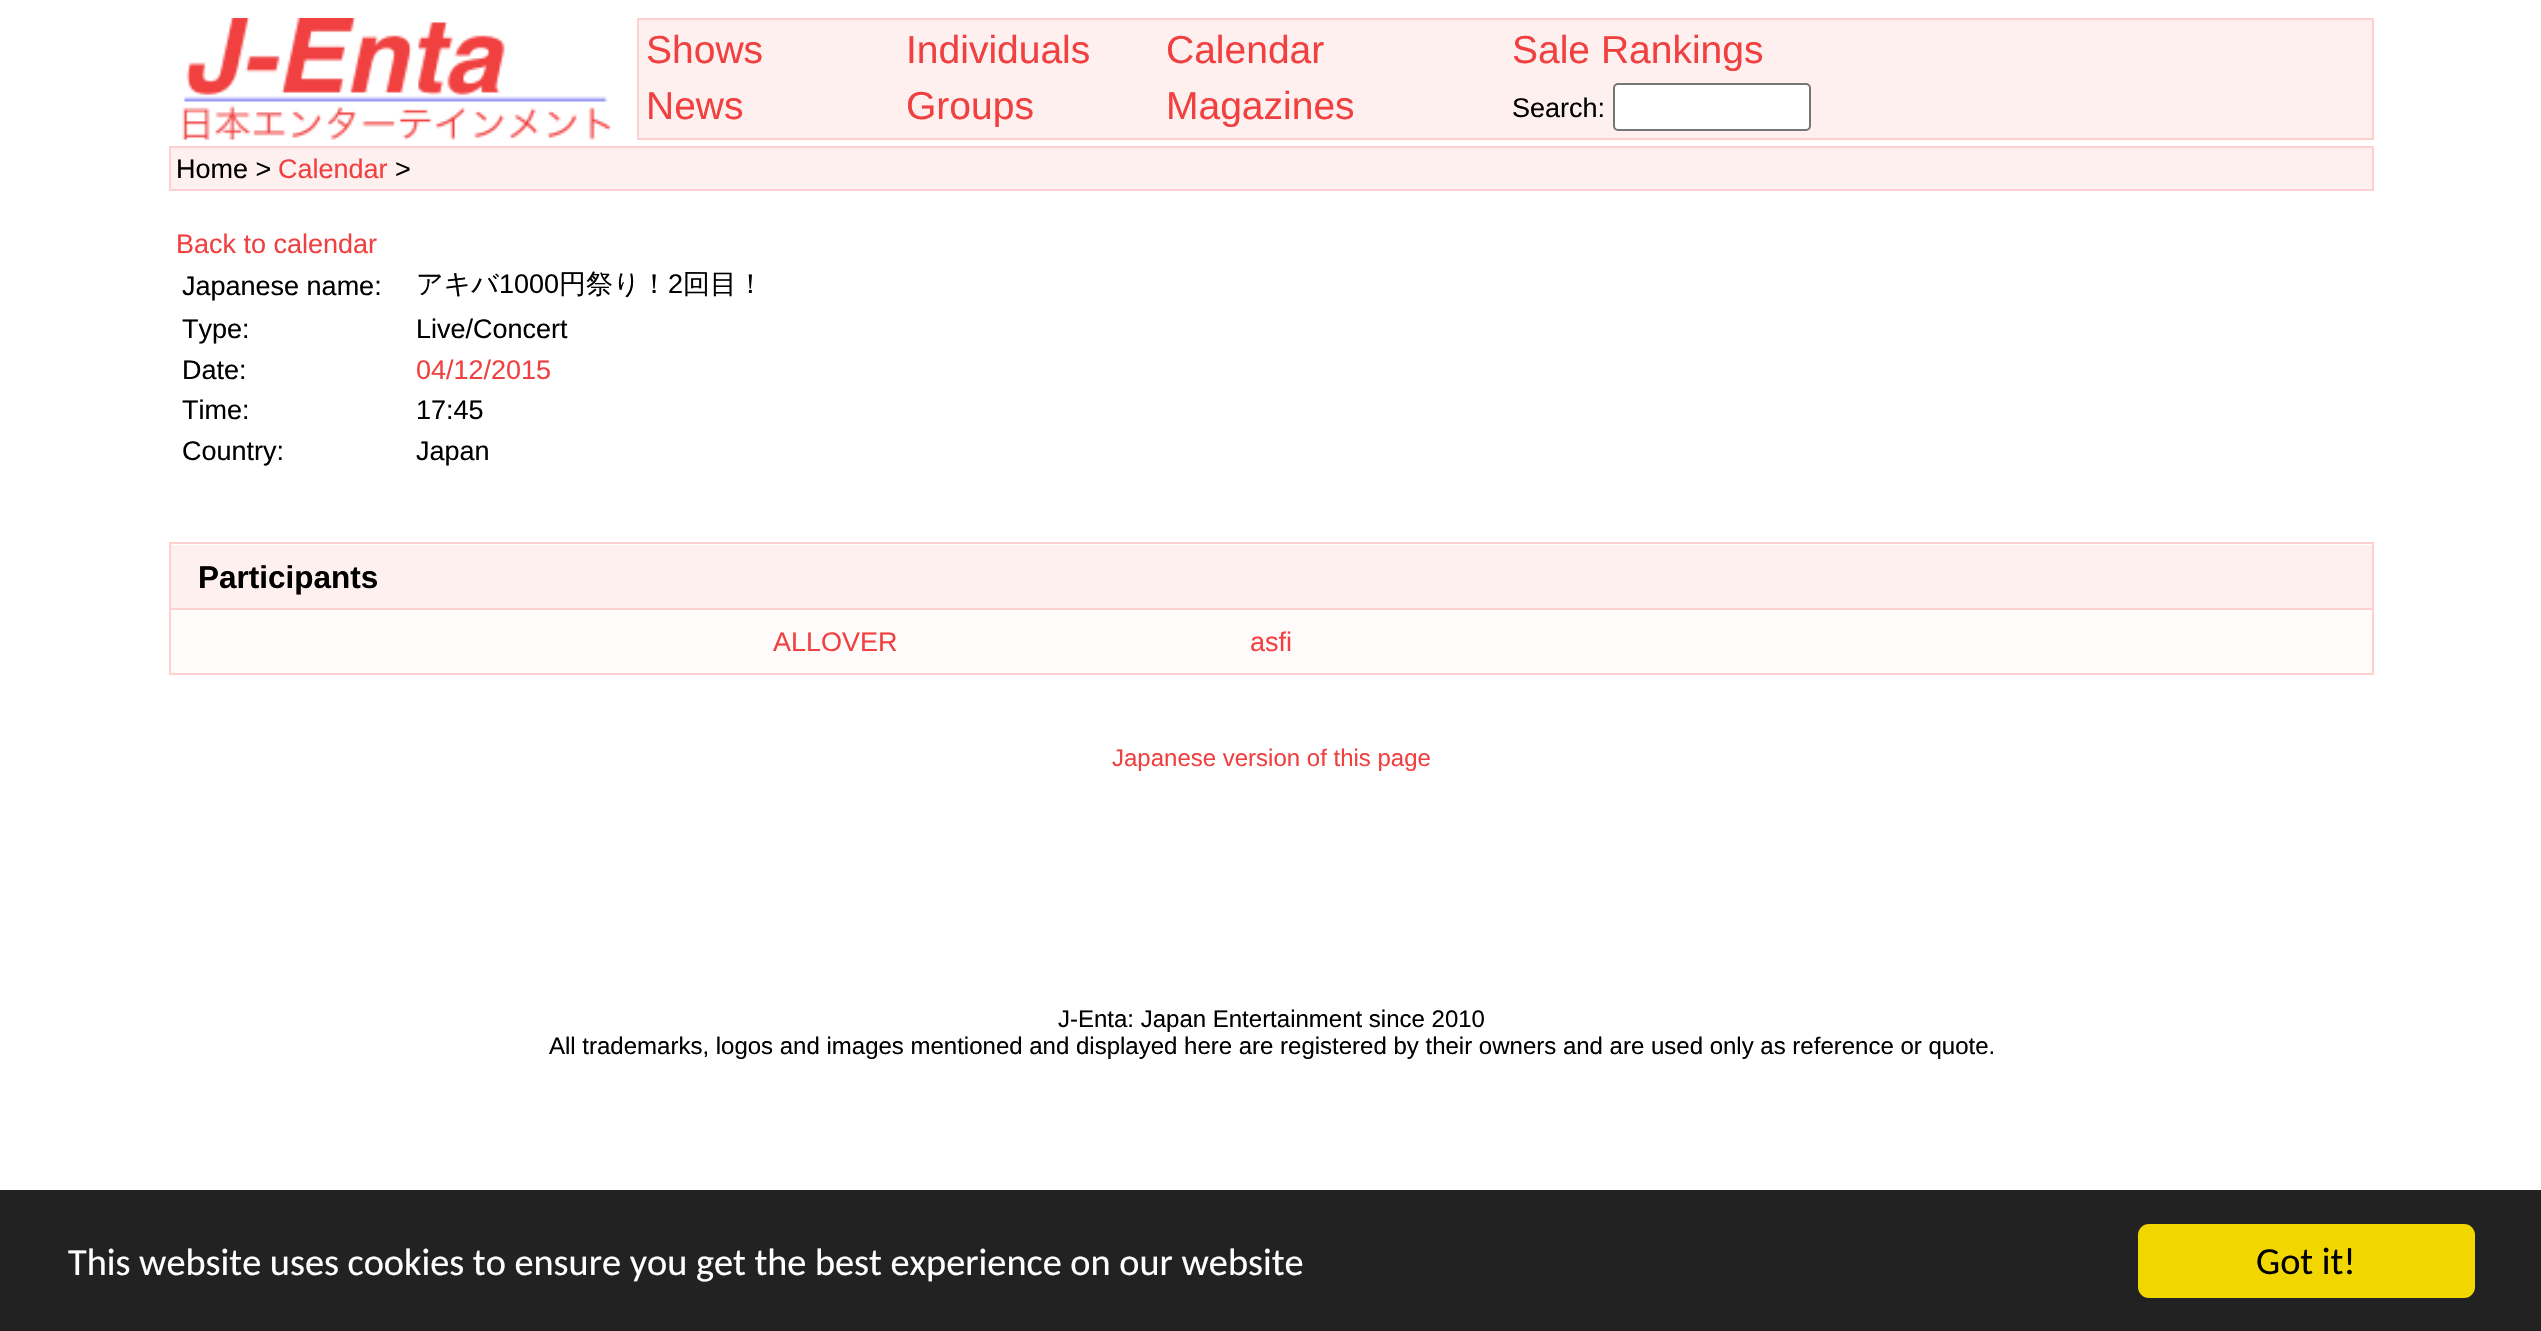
void draw(SkCanvas* canvas) {
    SkPaint paint;
    paint.setAntiAlias(true);
    canvas->clear(0xFFFFFFFF);
    canvas->drawImageRect(SkImages::DeferredFromEncodedData(SkData::MakeFromFileName("img1.png")), SkRect::MakeXYWH(181, 18, 429, 122), SkSamplingOptions());
    paint.setColor(0xFFFFF0F0);
    canvas->drawRect(SkRect::MakeXYWH(638, 19, 1735, 120), paint);
    paint.setStyle(SkPaint::kStroke_Style);
    paint.setStrokeWidth(2);
    paint.setColor(0xFFFFD0D0);
    canvas->drawRect(SkRect::MakeXYWH(638, 19, 1735, 120), paint);
    SkFont font1(fontMgr->matchFamilyStyle("Liberation Sans", SkFontStyle::Normal()), 39);
    font1.setSubpixel(true);
    paint.setStyle(SkPaint::kFill_Style);
    paint.setColor(0xFFF04040);
    canvas->drawString("Shows", 646, 63, font1, paint);
    canvas->drawString("Individuals", 906, 63, font1, paint);
    canvas->drawString("Calendar", 1166, 63, font1, paint);
    canvas->drawString("Sale Rankings", 1512, 63, font1, paint);
    canvas->drawString("News", 646, 119, font1, paint);
    canvas->drawString("Groups", 906, 119, font1, paint);
    canvas->drawString("Magazines", 1166, 119, font1, paint);
    SkFont font2(fontMgr->matchFamilyStyle("Liberation Sans", SkFontStyle::Normal()), 27);
    font2.setSubpixel(true);
    paint.setColor(0xFF000000);
    canvas->drawString("Search:", 1512, 117, font2, paint);
    paint.setColor(0xFFFFFFFF);
    canvas->drawRoundRect(SkRect::MakeXYWH(1614, 84, 196, 46), 4, 4, paint);
    paint.setStyle(SkPaint::kStroke_Style);
    paint.setColor(0xFF767676);
    canvas->drawRoundRect(SkRect::MakeXYWH(1614, 84, 196, 46), 4, 4, paint);
    paint.setStyle(SkPaint::kFill_Style);
    paint.setColor(0xFFFFF0F0);
    canvas->drawRect(SkRect::MakeXYWH(170, 147, 2203, 43), paint);
    paint.setStyle(SkPaint::kStroke_Style);
    paint.setColor(0xFFFFD0D0);
    canvas->drawRect(SkRect::MakeXYWH(170, 147, 2203, 43), paint);
    paint.setStyle(SkPaint::kFill_Style);
    paint.setColor(0xFF000000);
    canvas->drawString("Home >", 176, 178, font2, paint);
    paint.setColor(0xFFF04040);
    canvas->drawString("Calendar", 278, 178, font2, paint);
    paint.setColor(0xFF000000);
    canvas->drawString(">", 395, 178, font2, paint);
    paint.setColor(0xFFF04040);
    canvas->drawString("Back to calendar", 176, 253, font2, paint);
    paint.setColor(0xFF000000);
    canvas->drawString("Japanese name:", 182, 295, font2, paint);
    SkFont font3(fontMgr->matchFamilyStyle("WenQuanYi Zen Hei", SkFontStyle(500, SkFontStyle::kNormal_Width, SkFontStyle::kUpright_Slant)), 27);
    font3.setSubpixel(true);
    canvas->drawString("アキバ", 416, 293, font3, paint);
    canvas->drawString("1000", 499, 293, font2, paint);
    canvas->drawString("円祭り！", 559, 293, font3, paint);
    canvas->drawString("2", 668, 293, font2, paint);
    canvas->drawString("回目！", 683, 293, font3, paint);
    canvas->drawString("Type:", 182, 338, font2, paint);
    canvas->drawString("Live/Concert", 416, 338, font2, paint);
    canvas->drawString("Date:", 182, 379, font2, paint);
    paint.setColor(0xFFF04040);
    canvas->drawString("04/12/2015", 416, 379, font2, paint);
    paint.setColor(0xFF000000);
    canvas->drawString("Time:", 182, 419, font2, paint);
    canvas->drawString("17:45", 416, 419, font2, paint);
    canvas->drawString("Country:", 182, 460, font2, paint);
    canvas->drawString("Japan", 416, 460, font2, paint);
    paint.setColor(0xFFFFF0F0);
    canvas->drawRect(SkRect::MakeXYWH(171, 545, 2201, 63), paint);
    paint.setColor(0xFFFFD0D0);
    canvas->drawRect(SkRect::MakeXYWH(169, 542, 2205, 2), paint);
    canvas->drawRect(SkRect::MakeXYWH(169, 608, 2205, 2), paint);
    canvas->drawRect(SkRect::MakeXYWH(2372, 608, 2, 67), paint);
    canvas->drawRect(SkRect::MakeXYWH(2372, 542, 2, 68), paint);
    canvas->drawRect(SkRect::MakeXYWH(169, 673, 2205, 2), paint);
    canvas->drawRect(SkRect::MakeXYWH(169, 608, 2, 67), paint);
    canvas->drawRect(SkRect::MakeXYWH(169, 542, 2, 68), paint);
    SkFont font4(fontMgr->matchFamilyStyle("Liberation Sans", SkFontStyle::Bold()), 31.5f);
    font4.setSubpixel(true);
    paint.setColor(0xFF000000);
    canvas->drawString("Participants", 198, 588, font4, paint);
    paint.setColor(0xFFFFFBFB);
    canvas->drawRect(SkRect::MakeXYWH(171, 610, 2201, 63), paint);
    paint.setColor(0xFFF04040);
    canvas->drawString("ALLOVER", 773, 651, font2, paint);
    canvas->drawString("asfi", 1250, 651, font2, paint);
    SkFont font5(fontMgr->matchFamilyStyle("Liberation Sans", SkFontStyle::Normal()), 24);
    font5.setSubpixel(true);
    canvas->drawString("Japanese version of this page", 1112, 766, font5, paint);
    paint.setColor(0xFF000000);
    canvas->drawString("J-Enta: Japan Entertainment since 2010", 1058, 1027, font5, paint);
    canvas->drawString("All trademarks, logos and images mentioned and displayed here are registered by their owners and are used only as reference or quote.", 549, 1054, font5, paint);
    paint.setColor(0xFF222222);
    canvas->drawRect(SkRect::MakeXYWH(0, 1190, 2541, 141), paint);
    SkFont font6(fontMgr->matchFamilyStyle("Carlito", SkFontStyle::Normal()), 38.25f);
    font6.setSubpixel(true);
    paint.setColor(0xFFFFFFFF);
    canvas->drawString("This website uses cookies to ensure you get the best experience on our website", 68, 1275, font6, paint);
    paint.setColor(0xFFF1D600);
    canvas->drawRoundRect(SkRect::MakeXYWH(2138, 1224, 337, 74), 11, 11, paint);
    paint.setColor(0xFF000000);
    canvas->drawString("Got it!", 2256, 1274, font6, paint);
}
